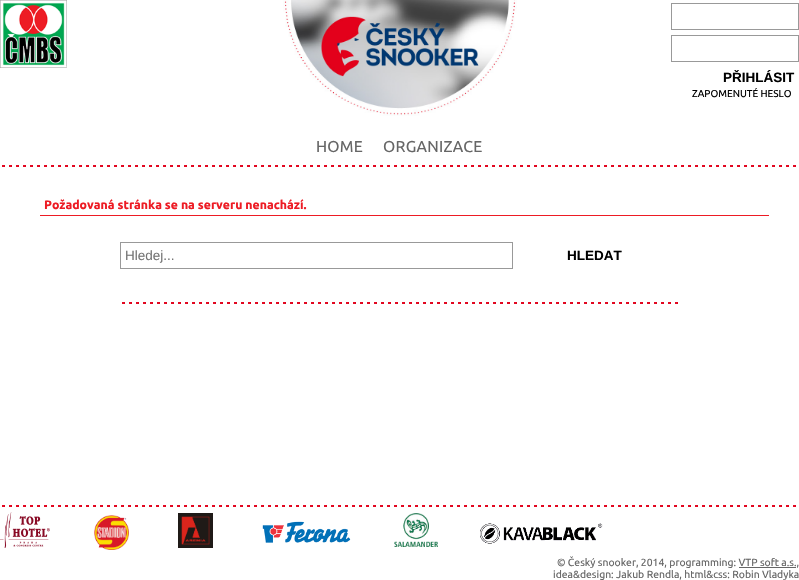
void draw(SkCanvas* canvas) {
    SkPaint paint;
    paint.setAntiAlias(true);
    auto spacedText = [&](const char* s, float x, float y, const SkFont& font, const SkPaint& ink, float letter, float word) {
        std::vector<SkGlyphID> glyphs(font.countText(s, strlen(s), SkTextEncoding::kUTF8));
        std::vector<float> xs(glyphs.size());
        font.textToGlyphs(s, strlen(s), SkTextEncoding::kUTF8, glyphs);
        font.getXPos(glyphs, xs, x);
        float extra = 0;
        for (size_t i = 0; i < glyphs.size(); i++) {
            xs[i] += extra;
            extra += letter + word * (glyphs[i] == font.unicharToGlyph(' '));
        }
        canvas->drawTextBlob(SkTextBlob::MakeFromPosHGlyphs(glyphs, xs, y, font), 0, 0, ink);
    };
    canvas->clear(0xFFFFFFFF);
    canvas->drawImageRect(SkImages::DeferredFromEncodedData(SkData::MakeFromFileName("img1.png")), SkRect::MakeXYWH(0, 0, 67, 68), SkSamplingOptions());
    canvas->drawImageRect(SkImages::DeferredFromEncodedData(SkData::MakeFromFileName("img2.png")), SkRect::MakeXYWH(283, 0, 234, 116), SkSamplingOptions());
    paint.setStyle(SkPaint::kStroke_Style);
    paint.setStrokeWidth(1);
    paint.setColor(0xFF999999);
    canvas->drawRect(SkRect::MakeXYWH(671.5f, 3.5f, 127, 26), paint);
    canvas->drawRect(SkRect::MakeXYWH(671.5f, 35.5f, 127, 26), paint);
    SkFont font1(fontMgr->matchFamilyStyle("Ubuntu", SkFontStyle::Normal()), 10);
    font1.setSubpixel(true);
    paint.setStyle(SkPaint::kFill_Style);
    paint.setColor(0xFF000000);
    canvas->drawString("ZAPOMENUTÉ HESLO", 692, 97, font1, paint);
    paint.setColor(0xFFFFFFFF);
    canvas->drawRect(SkRect::MakeXYWH(756, 87, 1, 1), paint);
    SkFont font2(fontMgr->matchFamilyStyle("Liberation Sans", SkFontStyle::Bold()), 13.5f);
    font2.setSubpixel(true);
    paint.setColor(0xFF000000);
    canvas->drawString("PŘIHLÁSIT", 723, 82, font2, paint);
    SkFont font3(fontMgr->matchFamilyStyle("Ubuntu", SkFontStyle::Normal()), 15.75f);
    font3.setSubpixel(true);
    paint.setColor(0xFF666666);
    spacedText("HOME", 316, 152, font3, paint, 0.25f, 0);
    spacedText("ORGANIZACE", 383, 152, font3, paint, 0.25f, 0);
    canvas->drawImageRect(SkImages::DeferredFromEncodedData(SkData::MakeFromFileName("img3.png")), SkRect::MakeXYWH(2, 165, 794, 2), SkSamplingOptions());
    paint.setColor(0xFFED1B24);
    canvas->drawRect(SkRect::MakeXYWH(40, 215, 729, 1), paint);
    SkFont font4(fontMgr->matchFamilyStyle("Ubuntu", SkFontStyle::Bold()), 12.25f);
    font4.setSubpixel(true);
    canvas->drawString("Požadovaná stránka se na serveru nenachází.", 44, 209, font4, paint);
    paint.setStyle(SkPaint::kStroke_Style);
    paint.setColor(0xFF999999);
    canvas->drawRect(SkRect::MakeXYWH(120.5f, 242.5f, 392, 26), paint);
    SkFont font5(fontMgr->matchFamilyStyle("Liberation Sans", SkFontStyle::Normal()), 13.5f);
    font5.setSubpixel(true);
    paint.setStyle(SkPaint::kFill_Style);
    paint.setColor(0xFF757575);
    canvas->drawString("Hledej...", 125, 260, font5, paint);
    paint.setColor(0xFF000000);
    canvas->drawString("HLEDAT", 567, 260, font2, paint);
    canvas->drawImageRect(SkImages::DeferredFromEncodedData(SkData::MakeFromFileName("img4.png")), SkRect::MakeXYWH(122, 302, 556, 2), SkSamplingOptions());
    canvas->drawImageRect(SkImages::DeferredFromEncodedData(SkData::MakeFromFileName("img3.png")), SkRect::MakeXYWH(2, 505, 794, 2), SkSamplingOptions());
    canvas->drawImageRect(SkImages::DeferredFromEncodedData(SkData::MakeFromFileName("img5.png")), SkRect::MakeXYWH(0, 512, 50, 36), SkSamplingOptions());
    canvas->drawImageRect(SkImages::DeferredFromEncodedData(SkData::MakeFromFileName("img6.png")), SkRect::MakeXYWH(94, 515, 35, 35), SkSamplingOptions());
    canvas->drawImageRect(SkImages::DeferredFromEncodedData(SkData::MakeFromFileName("img7.png")), SkRect::MakeXYWH(178, 513, 35, 35), SkSamplingOptions());
    canvas->drawImageRect(SkImages::DeferredFromEncodedData(SkData::MakeFromFileName("img8.png")), SkRect::MakeXYWH(262, 521, 89, 22), SkSamplingOptions());
    canvas->drawImageRect(SkImages::DeferredFromEncodedData(SkData::MakeFromFileName("img9.png")), SkRect::MakeXYWH(394, 513, 44, 34), SkSamplingOptions());
    canvas->drawImageRect(SkImages::DeferredFromEncodedData(SkData::MakeFromFileName("img10.png")), SkRect::MakeXYWH(480, 523, 123, 21), SkSamplingOptions());
    SkFont font6(fontMgr->matchFamilyStyle("Ubuntu", SkFontStyle::Normal()), 10.4f);
    font6.setSubpixel(true);
    paint.setColor(0xFF666666);
    canvas->drawString("© Český snooker, 2014, programming: VTP soft a.s.,", 557, 566, font6, paint);
    canvas->drawRect(SkRect::MakeXYWH(739, 567, 57, 1), paint);
    canvas->drawString("idea&design: Jakub Rendla, html&css: Robin Vladyka", 553, 578, font6, paint);
}
